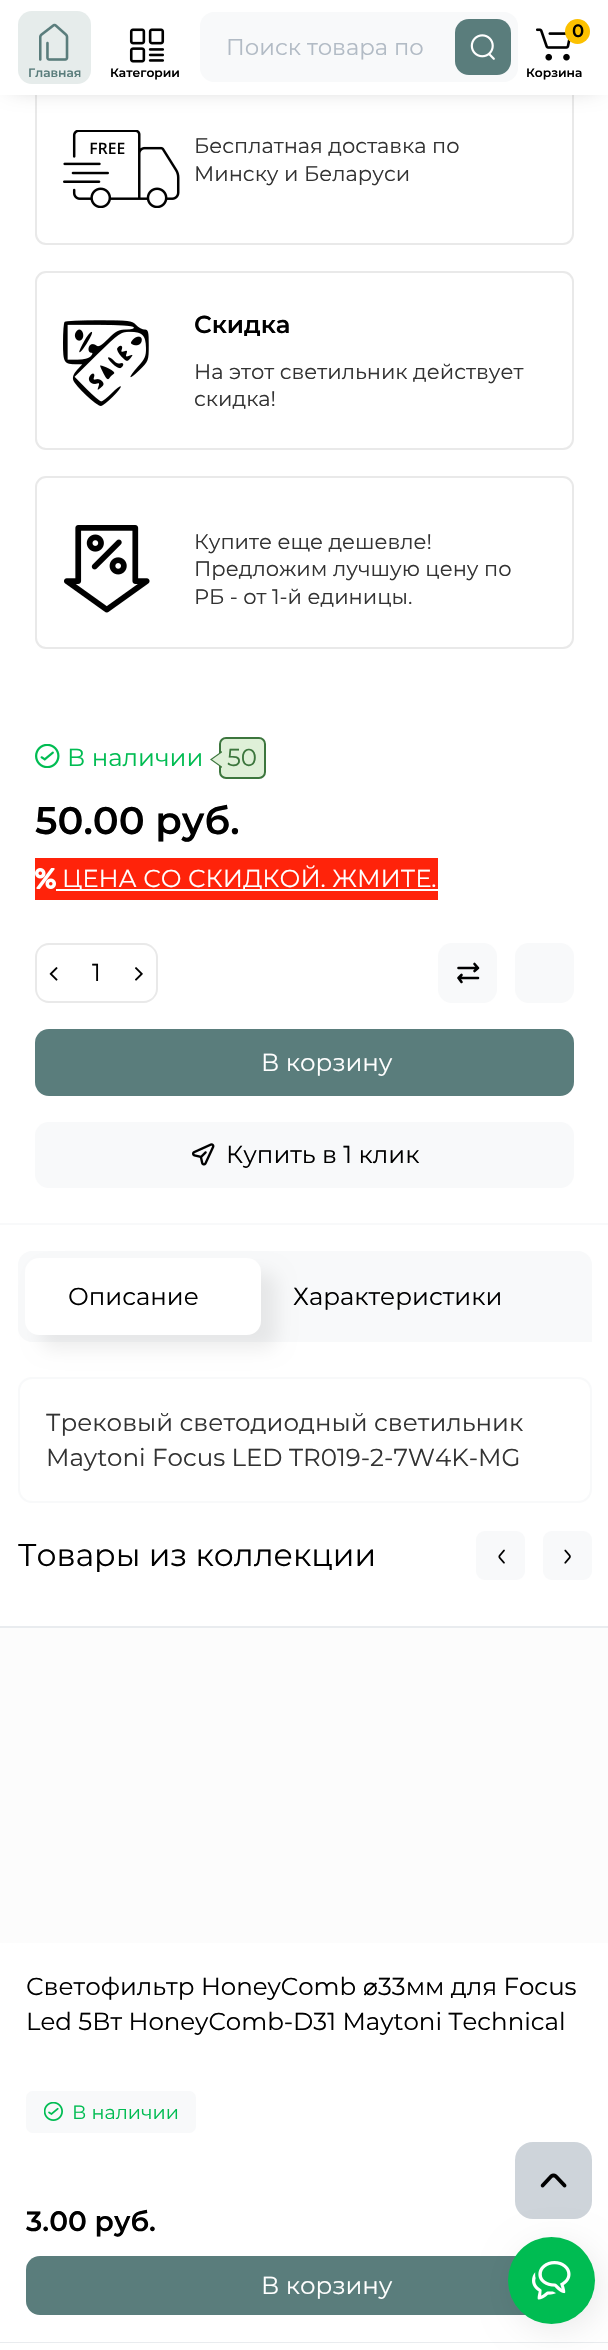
void draw(SkCanvas* canvas) {
    SkPaint paint;
    paint.setAntiAlias(true);
    canvas->clear(0xFFFFFFFF);
    paint.setStyle(SkPaint::kStroke_Style);
    paint.setStrokeWidth(2);
    paint.setColor(0xFFE9E9E9);
    canvas->drawRoundRect(SkRect::MakeXYWH(36, 82, 537, 162), 10, 10, paint);
    paint.setStyle(SkPaint::kFill_Style);
    paint.setColor(0x66000000);
    paint.setMaskFilter(SkMaskFilter::MakeBlur(kNormal_SkBlurStyle, 13));
    canvas->drawRect(SkRect::MakeXYWH(12, 12, 585, 70), paint);
    paint.setMaskFilter(nullptr);
    paint.setColor(0xFFFFFFFF);
    canvas->drawRect(SkRect::MakeXYWH(0, 0, 608, 95), paint);
    paint.setColor(0xFFF8F9FA);
    canvas->drawPath(SkPathBuilder().moveTo(214, 12).lineTo(457, 12).lineTo(457, 82).lineTo(214, 82).cubicTo(206.5f, 82, 200, 75.5f, 200, 68).lineTo(200, 26).cubicTo(200, 18.5f, 206.5f, 12, 214, 12).close().detach(), paint);
    SkFont font1(fontMgr->matchFamilyStyle("Montserrat", SkFontStyle::Normal()), 22.75f);
    font1.setSubpixel(true);
    paint.setColor(0xFFB2BBC5);
    canvas->drawString("Поиск товара по", 226, 55, font1, paint);
    paint.setColor(0xFFF8F9FA);
    canvas->drawPath(SkPathBuilder().moveTo(457, 12).lineTo(504, 12).cubicTo(511.5f, 12, 518, 18.5f, 518, 26).lineTo(518, 68).cubicTo(518, 75.5f, 511.5f, 82, 504, 82).lineTo(457, 82).close().detach(), paint);
    paint.setColor(0xFF5A7D7C);
    canvas->drawRoundRect(SkRect::MakeXYWH(455, 19, 56, 56), 14, 14, paint);
    canvas->drawImageRect(SkImages::DeferredFromEncodedData(SkData::MakeFromFileName("img1.png")), SkRect::MakeXYWH(470, 34, 25, 26), SkSamplingOptions());
    canvas->drawImageRect(SkImages::DeferredFromEncodedData(SkData::MakeFromFileName("img2.png")), SkRect::MakeXYWH(536, 28, 35, 33), SkSamplingOptions());
    paint.setColor(0xFFFCC100);
    canvas->drawCircle(577.5f, 31.5f, 12.5f, paint);
    SkFont font2(fontMgr->matchFamilyStyle("Montserrat", SkFontStyle(600, SkFontStyle::kNormal_Width, SkFontStyle::kUpright_Slant)), 18);
    font2.setSubpixel(true);
    paint.setColor(0xFF000000);
    canvas->drawString("0", 572, 37, font2, paint);
    SkFont font3(fontMgr->matchFamilyStyle("Montserrat", SkFontStyle(600, SkFontStyle::kNormal_Width, SkFontStyle::kUpright_Slant)), 12.25f);
    font3.setSubpixel(true);
    canvas->drawString("Корзина", 526, 77, font3, paint);
    paint.setColor(0xFFE6ECEB);
    canvas->drawRoundRect(SkRect::MakeXYWH(18, 11, 73, 73), 14, 14, paint);
    canvas->drawImageRect(SkImages::DeferredFromEncodedData(SkData::MakeFromFileName("img3.png")), SkRect::MakeXYWH(39, 23, 30, 38), SkSamplingOptions());
    paint.setColor(0xFF5A7D7C);
    canvas->drawString("Главная", 28, 77, font3, paint);
    canvas->drawImageRect(SkImages::DeferredFromEncodedData(SkData::MakeFromFileName("img4.png")), SkRect::MakeXYWH(129, 28, 36, 35), SkSamplingOptions());
    paint.setColor(0xFF000000);
    canvas->drawString("Категории", 110, 77, font3, paint);
    canvas->drawImageRect(SkImages::DeferredFromEncodedData(SkData::MakeFromFileName("img5.png")), SkRect::MakeXYWH(63, 130, 117, 78), SkSamplingOptions());
    SkFont font4(fontMgr->matchFamilyStyle("Montserrat", SkFontStyle::Normal()), 21);
    font4.setSubpixel(true);
    paint.setColor(0xFF333333);
    canvas->drawString("Бесплатная доставка по", 194, 153, font4, paint);
    canvas->drawString("Минску и Беларуси", 194, 181, font4, paint);
    paint.setStyle(SkPaint::kStroke_Style);
    paint.setColor(0xFFE9E9E9);
    canvas->drawRoundRect(SkRect::MakeXYWH(36, 272, 537, 177), 10, 10, paint);
    canvas->drawImageRect(SkImages::DeferredFromEncodedData(SkData::MakeFromFileName("img6.png")), SkRect::MakeXYWH(63, 320, 86, 86), SkSamplingOptions());
    SkFont font5(fontMgr->matchFamilyStyle("Montserrat", SkFontStyle(600, SkFontStyle::kNormal_Width, SkFontStyle::kUpright_Slant)), 24.5f);
    font5.setSubpixel(true);
    paint.setStyle(SkPaint::kFill_Style);
    paint.setColor(0xFF000000);
    canvas->drawString("Скидка", 194, 333, font5, paint);
    paint.setColor(0xFF333333);
    canvas->drawString("На этот светильник действует", 194, 379, font4, paint);
    canvas->drawString("скидка!", 194, 406, font4, paint);
    paint.setStyle(SkPaint::kStroke_Style);
    paint.setColor(0xFFE9E9E9);
    canvas->drawRoundRect(SkRect::MakeXYWH(36, 477, 537, 171), 10, 10, paint);
    canvas->drawImageRect(SkImages::DeferredFromEncodedData(SkData::MakeFromFileName("img7.png")), SkRect::MakeXYWH(64, 525, 86, 88), SkSamplingOptions());
    paint.setStyle(SkPaint::kFill_Style);
    paint.setColor(0xFF333333);
    canvas->drawString("Купите еще дешевле!", 194, 549, font4, paint);
    canvas->drawString("Предложим лучшую цену по", 194, 576, font4, paint);
    canvas->drawString("РБ - от 1-й единицы.", 194, 604, font4, paint);
    canvas->drawImageRect(SkImages::DeferredFromEncodedData(SkData::MakeFromFileName("img8.png")), SkRect::MakeXYWH(35, 744, 25, 24), SkSamplingOptions());
    SkFont font6(fontMgr->matchFamilyStyle("Montserrat", SkFontStyle::Normal()), 24.5f);
    font6.setSubpixel(true);
    paint.setColor(0xFF00BC52);
    canvas->drawString("В наличии", 67, 766, font6, paint);
    paint.setColor(0xFFDFF0D8);
    canvas->drawRoundRect(SkRect::MakeXYWH(220, 738, 45, 40), 6, 6, paint);
    paint.setStyle(SkPaint::kStroke_Style);
    paint.setColor(0xFF3C763D);
    canvas->drawRoundRect(SkRect::MakeXYWH(220, 738, 45, 40), 6, 6, paint);
    paint.setStyle(SkPaint::kFill_Style);
    canvas->drawPath(SkPathBuilder().moveTo(222, 751).lineTo(222, 768).lineTo(210, 759.5f).close().detach(), paint);
    canvas->drawString("50", 227, 766, font6, paint);
    paint.setColor(0xFFDFF0D8);
    canvas->drawPath(SkPathBuilder().moveTo(224, 751).lineTo(224, 768).lineTo(212, 759.5f).close().detach(), paint);
    SkFont font7(fontMgr->matchFamilyStyle("Montserrat", SkFontStyle(600, SkFontStyle::kNormal_Width, SkFontStyle::kUpright_Slant)), 38.5f);
    font7.setSubpixel(true);
    paint.setColor(0xFF000000);
    canvas->drawString("50.00 руб.", 35, 834, font7, paint);
    paint.setColor(0xFFFF230A);
    canvas->drawRect(SkRect::MakeXYWH(35, 858, 403, 42), paint);
    canvas->drawImageRect(SkImages::DeferredFromEncodedData(SkData::MakeFromFileName("img9.png")), SkRect::MakeXYWH(35, 868, 21, 21), SkSamplingOptions());
    paint.setColor(0xFFFFFFFF);
    canvas->drawRect(SkRect::MakeXYWH(56, 889, 382, 2), paint);
    canvas->drawString("ЦЕНА СО СКИДКОЙ. ЖМИТЕ.", 62, 887, font6, paint);
    paint.setColor(0xFFE9E9E9);
    canvas->drawPath(SkPathBuilder(SkPathFillType::kEvenOdd).moveTo(49, 943).lineTo(70, 943).lineTo(70, 1003).lineTo(49, 1003).cubicTo(41, 1003, 35, 996, 35, 989).lineTo(35, 957).cubicTo(35, 950, 41, 943, 49, 943).close().moveTo(49, 945).lineTo(70, 945).lineTo(70, 1001).lineTo(49, 1001).cubicTo(42, 1001, 37, 996, 37, 989).lineTo(37, 957).cubicTo(37, 950, 42, 945, 49, 945).close().detach(), paint);
    canvas->drawImageRect(SkImages::DeferredFromEncodedData(SkData::MakeFromFileName("img10.png")), SkRect::MakeXYWH(49, 967, 9, 14), SkSamplingOptions());
    canvas->drawRect(SkRect::MakeXYWH(70, 943, 53, 2), paint);
    canvas->drawRect(SkRect::MakeXYWH(70, 1001, 53, 2), paint);
    paint.setColor(0xFF000000);
    canvas->drawString("1", 92, 981, font6, paint);
    paint.setColor(0xFFE9E9E9);
    canvas->drawPath(SkPathBuilder(SkPathFillType::kEvenOdd).moveTo(122, 943).lineTo(144, 943).cubicTo(151, 943, 158, 950, 158, 957).lineTo(158, 989).cubicTo(158, 996, 151, 1003, 144, 1003).lineTo(122, 1003).close().moveTo(122, 945).lineTo(144, 945).cubicTo(150, 945, 156, 950, 156, 957).lineTo(156, 989).cubicTo(156, 996, 150, 1001, 144, 1001).lineTo(122, 1001).close().detach(), paint);
    canvas->drawImageRect(SkImages::DeferredFromEncodedData(SkData::MakeFromFileName("img11.png")), SkRect::MakeXYWH(135, 967, 8, 14), SkSamplingOptions());
    paint.setColor(0xFFF8F9FA);
    canvas->drawRoundRect(SkRect::MakeXYWH(438, 943, 59, 60), 14, 14, paint);
    paint.setStyle(SkPaint::kStroke_Style);
    paint.setStrokeWidth(2.6f);
    paint.setStrokeCap(SkPaint::kRound_Cap);
    paint.setStrokeJoin(SkPaint::kRound_Join);
    paint.setColor(0xFF000000);
    canvas->drawPath(SkPathBuilder().moveTo(458.5f, 968).lineTo(478, 968).moveTo(478, 968).lineTo(474.5f, 964).moveTo(478, 968).lineTo(474.5f, 971).moveTo(478, 978).lineTo(458.5f, 978).moveTo(458.5f, 978).lineTo(461.5f, 982).moveTo(458.5f, 978).lineTo(461.5f, 975).detach(), paint);
    paint.setStyle(SkPaint::kFill_Style);
    paint.setColor(0xFFF8F9FA);
    canvas->drawRoundRect(SkRect::MakeXYWH(515, 943, 59, 60), 14, 14, paint);
    paint.setColor(0xFF5A7D7C);
    canvas->drawRoundRect(SkRect::MakeXYWH(35, 1029, 539, 67), 14, 14, paint);
    paint.setColor(0xFFFFFFFF);
    canvas->drawString("В корзину", 261, 1071, font6, paint);
    paint.setColor(0xFFF8F9FA);
    canvas->drawRoundRect(SkRect::MakeXYWH(35, 1122, 539, 66), 14, 14, paint);
    canvas->drawImageRect(SkImages::DeferredFromEncodedData(SkData::MakeFromFileName("img12.png")), SkRect::MakeXYWH(192, 1143, 23, 23), SkSamplingOptions());
    paint.setColor(0xFF000000);
    canvas->drawString("Купить в 1 клик", 226, 1163, font6, paint);
    paint.setColor(0xFFF8F9FA);
    canvas->drawRect(SkRect::MakeXYWH(0, 1223, 608, 2), paint);
    canvas->drawPath(SkPathBuilder().moveTo(32, 1251).lineTo(578, 1251).cubicTo(585.5f, 1251, 592, 1257.5f, 592, 1265).lineTo(592, 1342).lineTo(32, 1342).cubicTo(24.5f, 1342, 18, 1335.5f, 18, 1328).lineTo(18, 1265).cubicTo(18, 1257.5f, 24.5f, 1251, 32, 1251).close().detach(), paint);
    paint.setColor(0x12000000);
    paint.setMaskFilter(SkMaskFilter::MakeBlur(kNormal_SkBlurStyle, 9));
    canvas->drawRoundRect(SkRect::MakeXYWH(40, 1272, 237, 77), 14, 14, paint);
    paint.setMaskFilter(nullptr);
    paint.setColor(0xFFFFFFFF);
    canvas->drawRoundRect(SkRect::MakeXYWH(25, 1258, 236, 77), 14, 14, paint);
    paint.setColor(0xFF000000);
    canvas->drawString("Описание", 68, 1305, font6, paint);
    canvas->drawString("Характеристики", 293, 1305, font6, paint);
    paint.setStyle(SkPaint::kStroke_Style);
    paint.setStrokeWidth(2);
    paint.setStrokeCap(SkPaint::kButt_Cap);
    paint.setStrokeJoin(SkPaint::kMiter_Join);
    paint.setColor(0xFFF8F9FA);
    canvas->drawRoundRect(SkRect::MakeXYWH(19, 1378, 572, 124), 13, 13, paint);
    paint.setStyle(SkPaint::kFill_Style);
    paint.setColor(0xFF333333);
    canvas->drawString("Трековый светодиодный светильник", 46, 1431, font6, paint);
    canvas->drawString("Maytoni Focus LED TR019-2-7W4K-MG", 46, 1466, font6, paint);
    SkFont font8(fontMgr->matchFamilyStyle("Montserrat", SkFontStyle::Normal()), 31.5f);
    font8.setSubpixel(true);
    paint.setColor(0xFF000000);
    canvas->drawString("Товары из коллекции", 18, 1566, font8, paint);
    paint.setColor(0xFFF8F9FA);
    canvas->drawRoundRect(SkRect::MakeXYWH(476, 1531, 49, 49), 9, 9, paint);
    canvas->drawImageRect(SkImages::DeferredFromEncodedData(SkData::MakeFromFileName("img13.png")), SkRect::MakeXYWH(498, 1549, 7, 15), SkSamplingOptions());
    canvas->drawRoundRect(SkRect::MakeXYWH(543, 1531, 49, 49), 9, 9, paint);
    canvas->drawImageRect(SkImages::DeferredFromEncodedData(SkData::MakeFromFileName("img14.png")), SkRect::MakeXYWH(564, 1549, 7, 15), SkSamplingOptions());
    paint.setStyle(SkPaint::kStroke_Style);
    paint.setColor(0xFFE9ECEF);
    canvas->drawRect(SkRect::MakeXYWH(-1, 1627, 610, 715), paint);
    paint.setStyle(SkPaint::kFill_Style);
    paint.setColor(0xFFFFFFFF);
    canvas->drawRect(SkRect::MakeXYWH(0, 2341, 608, 1), paint);
    paint.setColor(0xFFFCFCFC);
    canvas->drawRect(SkRect::MakeXYWH(0, 1628, 608, 315), paint);
    paint.setColor(0xFF000000);
    canvas->drawString("Светофильтр HoneyComb", 26, 1995, font6, paint);
    SkFont font9(fontMgr->matchFamilyStyle("DejaVu Sans", SkFontStyle::Normal()), 24.5f);
    font9.setSubpixel(true);
    canvas->drawString("⌀", 363, 1995, font9, paint);
    canvas->drawString("33мм для Focus", 378, 1995, font6, paint);
    canvas->drawString("Led 5Вт HoneyComb-D31 Maytoni Technical", 26, 2030, font6, paint);
    paint.setColor(0xFFF8F9FA);
    canvas->drawRoundRect(SkRect::MakeXYWH(26, 2091, 170, 42), 7, 7, paint);
    canvas->drawImageRect(SkImages::DeferredFromEncodedData(SkData::MakeFromFileName("img15.png")), SkRect::MakeXYWH(44, 2102, 19, 19), SkSamplingOptions());
    SkFont font10(fontMgr->matchFamilyStyle("Montserrat", SkFontStyle::Normal()), 19.25f);
    font10.setSubpixel(true);
    paint.setColor(0xFF00BC52);
    canvas->drawString("В наличии", 72, 2119, font10, paint);
    SkFont font11(fontMgr->matchFamilyStyle("Montserrat", SkFontStyle(600, SkFontStyle::kNormal_Width, SkFontStyle::kUpright_Slant)), 28);
    font11.setSubpixel(true);
    paint.setColor(0xFF000000);
    canvas->drawString("3.00 руб.", 26, 2231, font11, paint);
    paint.setColor(0xFF5A7D7C);
    canvas->drawRoundRect(SkRect::MakeXYWH(26, 2256, 557, 59), 14, 14, paint);
    paint.setColor(0xFFFFFFFF);
    canvas->drawString("В корзину", 261, 2294, font6, paint);
    paint.setColor(0xFFCED4DA);
    canvas->drawRoundRect(SkRect::MakeXYWH(515, 2142, 77, 77), 18, 18, paint);
    canvas->drawImageRect(SkImages::DeferredFromEncodedData(SkData::MakeFromFileName("img16.png")), SkRect::MakeXYWH(540, 2173, 27, 15), SkSamplingOptions());
    paint.setColor(0x14000000);
    paint.setMaskFilter(SkMaskFilter::MakeBlur(kNormal_SkBlurStyle, 16));
    canvas->drawRoundRect(SkRect::MakeXYWH(513, 2244, 87, 87), 43.5f, 43.5f, paint);
    paint.setMaskFilter(nullptr);
    paint.setColor(0xFF00BC52);
    canvas->drawCircle(551.5f, 2280.5f, 43.5f, paint);
    canvas->drawImageRect(SkImages::DeferredFromEncodedData(SkData::MakeFromFileName("img17.png")), SkRect::MakeXYWH(532, 2261, 39, 39), SkSamplingOptions());
}
